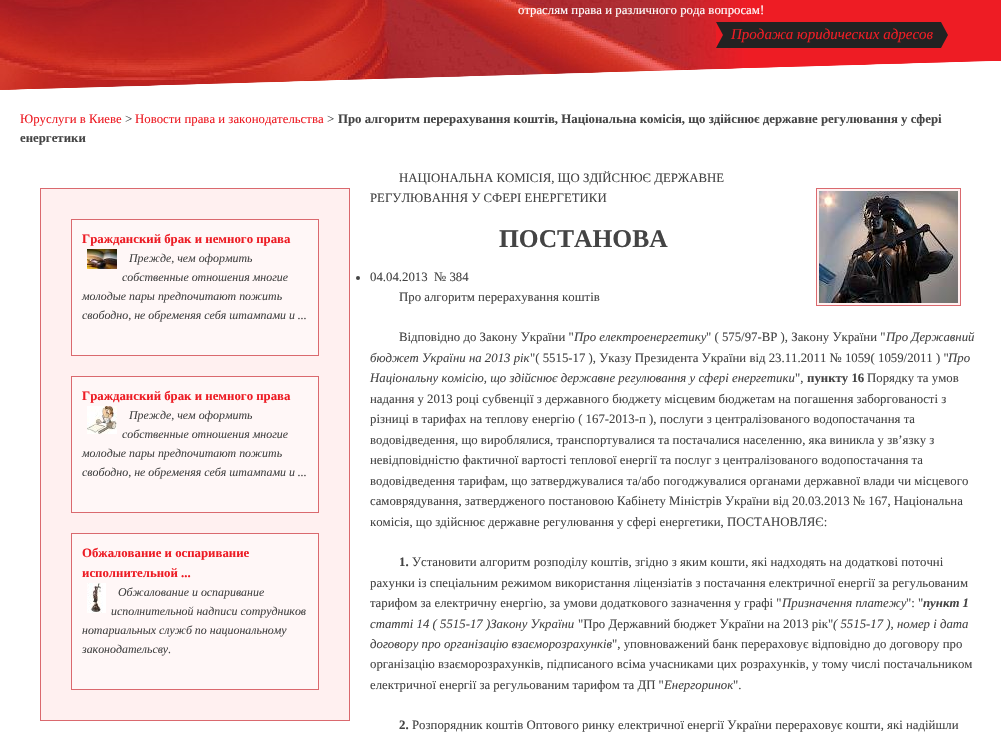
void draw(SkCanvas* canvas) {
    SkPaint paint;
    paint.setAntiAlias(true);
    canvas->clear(0xFFFFFFFF);
    paint.setColor(0xFFEE1C24);
    canvas->drawRect(SkRect::MakeXYWH(748, 0, 253, 68), paint);
    canvas->drawImageRect(SkImages::DeferredFromEncodedData(SkData::MakeFromFileName("img1.png")), SkRect::MakeXYWH(0, 0, 1001, 90), SkSamplingOptions());
    SkFont font1(fontMgr->matchFamilyStyle("Liberation Serif", SkFontStyle::Normal()), 12.8f);
    font1.setSubpixel(true);
    paint.setColor(0xFFFFFFFF);
    canvas->drawString("отраслям права и различного рода вопросам!", 518, 14, font1, paint);
    paint.setColor(0xFF222222);
    canvas->drawRect(SkRect::MakeXYWH(716, 22, 225, 26), paint);
    paint.setColor(0xFFED1C24);
    canvas->drawPath(SkPathBuilder().moveTo(716, 48).lineTo(716, 22).lineTo(723, 35).close().detach(), paint);
    SkFont font2(fontMgr->matchFamilyStyle("Liberation Serif", SkFontStyle::Italic()), 15);
    font2.setSubpixel(true);
    canvas->drawString("Продажа юридических адресов", 731, 39, font2, paint);
    paint.setColor(0xFF222222);
    canvas->drawPath(SkPathBuilder().moveTo(941, 48).lineTo(941, 22).lineTo(948, 35).close().detach(), paint);
    paint.setColor(0xFFED1C24);
    canvas->drawString("Юруслуги в Киеве", 20, 123, font1, paint);
    paint.setColor(0xFF444444);
    canvas->drawString(">", 125, 123, font1, paint);
    paint.setColor(0xFFED1C24);
    canvas->drawString("Новости права и законодательства", 135, 123, font1, paint);
    paint.setColor(0xFF444444);
    canvas->drawString(">", 327, 123, font1, paint);
    SkFont font3(fontMgr->matchFamilyStyle("Liberation Serif", SkFontStyle::Bold()), 12.8f);
    font3.setSubpixel(true);
    canvas->drawString("Про алгоритм перерахування коштів, Національна комісія, що здійснює державне регулювання у сфері", 338, 123, font3, paint);
    canvas->drawString("енергетики", 20, 142, font3, paint);
    paint.setColor(0xFFFFF0F0);
    canvas->drawRect(SkRect::MakeXYWH(40.5f, 188.5f, 309, 532), paint);
    paint.setStyle(SkPaint::kStroke_Style);
    paint.setStrokeWidth(1);
    paint.setColor(0xFFDA696E);
    canvas->drawRect(SkRect::MakeXYWH(40.5f, 188.5f, 309, 532), paint);
    paint.setStyle(SkPaint::kFill_Style);
    paint.setColor(0xFFFFF7F7);
    canvas->drawRect(SkRect::MakeXYWH(71.5f, 219.5f, 247, 136), paint);
    paint.setStyle(SkPaint::kStroke_Style);
    paint.setColor(0xFFDA696E);
    canvas->drawRect(SkRect::MakeXYWH(71.5f, 219.5f, 247, 136), paint);
    paint.setStyle(SkPaint::kFill_Style);
    paint.setColor(0xFFED1C24);
    canvas->drawString("Гражданский брак и немного права", 82, 243, font3, paint);
    canvas->drawImageRect(SkImages::DeferredFromEncodedData(SkData::MakeFromFileName("img2.png")), SkRect::MakeXYWH(87, 249, 30, 20), SkSamplingOptions());
    SkFont font4(fontMgr->matchFamilyStyle("Liberation Serif", SkFontStyle::Italic()), 11.9f);
    font4.setSubpixel(true);
    paint.setColor(0xFF444444);
    canvas->drawString("Прежде, чем оформить", 129, 262, font4, paint);
    canvas->drawString("собственные отношения многие", 122, 281, font4, paint);
    canvas->drawString("молодые пары предпочитают пожить", 82, 300, font4, paint);
    canvas->drawString("свободно, не обременяя себя штампами и ...", 82, 319, font4, paint);
    paint.setColor(0xFFFFF7F7);
    canvas->drawRect(SkRect::MakeXYWH(71.5f, 376.5f, 247, 136), paint);
    paint.setStyle(SkPaint::kStroke_Style);
    paint.setColor(0xFFDA696E);
    canvas->drawRect(SkRect::MakeXYWH(71.5f, 376.5f, 247, 136), paint);
    paint.setStyle(SkPaint::kFill_Style);
    paint.setColor(0xFFED1C24);
    canvas->drawString("Гражданский брак и немного права", 82, 400, font3, paint);
    canvas->drawImageRect(SkImages::DeferredFromEncodedData(SkData::MakeFromFileName("img3.png")), SkRect::MakeXYWH(87, 406, 30, 28), SkSamplingOptions());
    paint.setColor(0xFF444444);
    canvas->drawString("Прежде, чем оформить", 129, 419, font4, paint);
    canvas->drawString("собственные отношения многие", 122, 438, font4, paint);
    canvas->drawString("молодые пары предпочитают пожить", 82, 457, font4, paint);
    canvas->drawString("свободно, не обременяя себя штампами и ...", 82, 476, font4, paint);
    paint.setColor(0xFFFFF7F7);
    canvas->drawRect(SkRect::MakeXYWH(71.5f, 533.5f, 247, 156), paint);
    paint.setStyle(SkPaint::kStroke_Style);
    paint.setColor(0xFFDA696E);
    canvas->drawRect(SkRect::MakeXYWH(71.5f, 533.5f, 247, 156), paint);
    paint.setStyle(SkPaint::kFill_Style);
    paint.setColor(0xFFED1C24);
    canvas->drawString("Обжалование и оспаривание", 82, 557, font3, paint);
    canvas->drawString("исполнительной ...", 82, 577, font3, paint);
    canvas->drawImageRect(SkImages::DeferredFromEncodedData(SkData::MakeFromFileName("img4.png")), SkRect::MakeXYWH(87, 583, 19, 30), SkSamplingOptions());
    paint.setColor(0xFF444444);
    canvas->drawString("Обжалование и оспаривание", 118, 596, font4, paint);
    canvas->drawString("исполнительной надписи сотрудников", 111, 615, font4, paint);
    canvas->drawString("нотариальных служб по национальному", 82, 634, font4, paint);
    canvas->drawString("законодательсву.", 82, 653, font4, paint);
    canvas->drawString("НАЦІОНАЛЬНА КОМІСІЯ, ЩО ЗДІЙСНЮЄ ДЕРЖАВНЕ", 399, 182, font1, paint);
    canvas->drawString("РЕГУЛЮВАННЯ У СФЕРІ ЕНЕРГЕТИКИ", 370, 202, font1, paint);
    paint.setColor(0xFFFFF0F0);
    canvas->drawRect(SkRect::MakeXYWH(816.5f, 188.5f, 144, 117), paint);
    paint.setStyle(SkPaint::kStroke_Style);
    paint.setColor(0xFFDA696E);
    canvas->drawRect(SkRect::MakeXYWH(816.5f, 188.5f, 144, 117), paint);
    canvas->drawImageRect(SkImages::DeferredFromEncodedData(SkData::MakeFromFileName("img5.png")), SkRect::MakeXYWH(819, 191, 139, 112), SkSamplingOptions());
    SkFont font5(fontMgr->matchFamilyStyle("Liberation Serif", SkFontStyle::Bold()), 25.5f);
    font5.setSubpixel(true);
    paint.setStyle(SkPaint::kFill_Style);
    paint.setColor(0xFF444444);
    canvas->drawString("ПОСТАНОВА", 499, 247, font5, paint);
    canvas->drawCircle(358, 278, 2, paint);
    canvas->drawString("04.04.2013  № 384", 370, 281, font1, paint);
    canvas->drawString("Про алгоритм перерахування коштів", 399, 301, font1, paint);
    canvas->drawString("Відповідно до Закону України \"", 399, 341, font1, paint);
    SkFont font6(fontMgr->matchFamilyStyle("Liberation Serif", SkFontStyle::Italic()), 12.8f);
    font6.setSubpixel(true);
    canvas->drawString("Про електроенергетику", 574, 341, font6, paint);
    canvas->drawString("\" ( 575/97-ВР ), Закону України \"", 706, 341, font1, paint);
    canvas->drawString("Про Державний", 886, 341, font6, paint);
    canvas->drawString("бюджет України на 2013 рік", 370, 362, font6, paint);
    canvas->drawString("\"( 5515-17 ), Указу Президента України від 23.11.2011 № 1059( 1059/2011 ) \"", 530, 362, font1, paint);
    canvas->drawString("Про", 948, 362, font6, paint);
    canvas->drawString("Національну комісію, що здійснює державне регулювання у сфері енергетики", 370, 382, font6, paint);
    canvas->drawString("\",", 795, 382, font1, paint);
    canvas->drawString("пункту 16", 807, 382, font3, paint);
    canvas->drawString("Порядку та умов", 867, 382, font1, paint);
    canvas->drawString("надання у 2013 році субвенції з державного бюджету місцевим бюджетам на погашення заборгованості з", 370, 403, font1, paint);
    canvas->drawString("різниці в тарифах на теплову енергію ( 167-2013-п ), послуги з централізованого водопостачання та", 370, 423, font1, paint);
    canvas->drawString("водовідведення, що вироблялися, транспортувалися та постачалися населенню, яка виникла у зв’язку з", 370, 444, font1, paint);
    canvas->drawString("невідповідністю фактичної вартості теплової енергії та послуг з централізованого водопостачання та", 370, 464, font1, paint);
    canvas->drawString("водовідведення тарифам, що затверджувалися та/або погоджувалися органами державної влади чи місцевого", 370, 485, font1, paint);
    canvas->drawString("самоврядування, затвердженого постановою Кабінету Міністрів України від 20.03.2013 № 167, Національна", 370, 505, font1, paint);
    canvas->drawString("комісія, що здійснює державне регулювання у сфері енергетики, ПОСТАНОВЛЯЄ:", 370, 526, font1, paint);
    canvas->drawString("1.", 399, 566, font3, paint);
    canvas->drawString("Установити алгоритм розподілу коштів, згідно з яким кошти, які надходять на додаткові поточні", 412, 566, font1, paint);
    canvas->drawString("рахунки із спеціальним режимом використання ліцензіатів з постачання електричної енергії за регульованим", 370, 587, font1, paint);
    canvas->drawString("тарифом за електричну енергію, за умови додаткового зазначення у графі \"", 370, 607, font1, paint);
    canvas->drawString("Призначення платежу", 782, 607, font6, paint);
    canvas->drawString("\": \"", 906, 607, font1, paint);
    SkFont font7(fontMgr->matchFamilyStyle("Liberation Serif", SkFontStyle::BoldItalic()), 12.8f);
    font7.setSubpixel(true);
    canvas->drawString("пункт 1", 923, 607, font7, paint);
    canvas->drawString("статті 14 ( 5515-17 )Закону України", 370, 628, font6, paint);
    canvas->drawString("\"Про Державний бюджет України на 2013 рік\"", 578, 628, font1, paint);
    canvas->drawString("( 5515-17 ), номер і дата", 833, 628, font6, paint);
    canvas->drawString("договору про організацію взаєморозрахунків", 370, 648, font6, paint);
    canvas->drawString("\", уповноважений банк перераховує відповідно до договору про", 612, 648, font1, paint);
    canvas->drawString("організацію взаєморозрахунків, підписаного всіма учасниками цих розрахунків, у тому числі постачальником", 370, 668, font1, paint);
    canvas->drawString("електричної енергії за регульованим тарифом та ДП \"", 370, 689, font1, paint);
    canvas->drawString("Енергоринок", 664, 689, font6, paint);
    canvas->drawString("\".", 733, 689, font1, paint);
    canvas->drawString("2.", 399, 729, font3, paint);
    canvas->drawString("Розпорядник коштів Оптового ринку електричної енергії України перераховує кошти, які надійшли", 412, 729, font1, paint);
}
